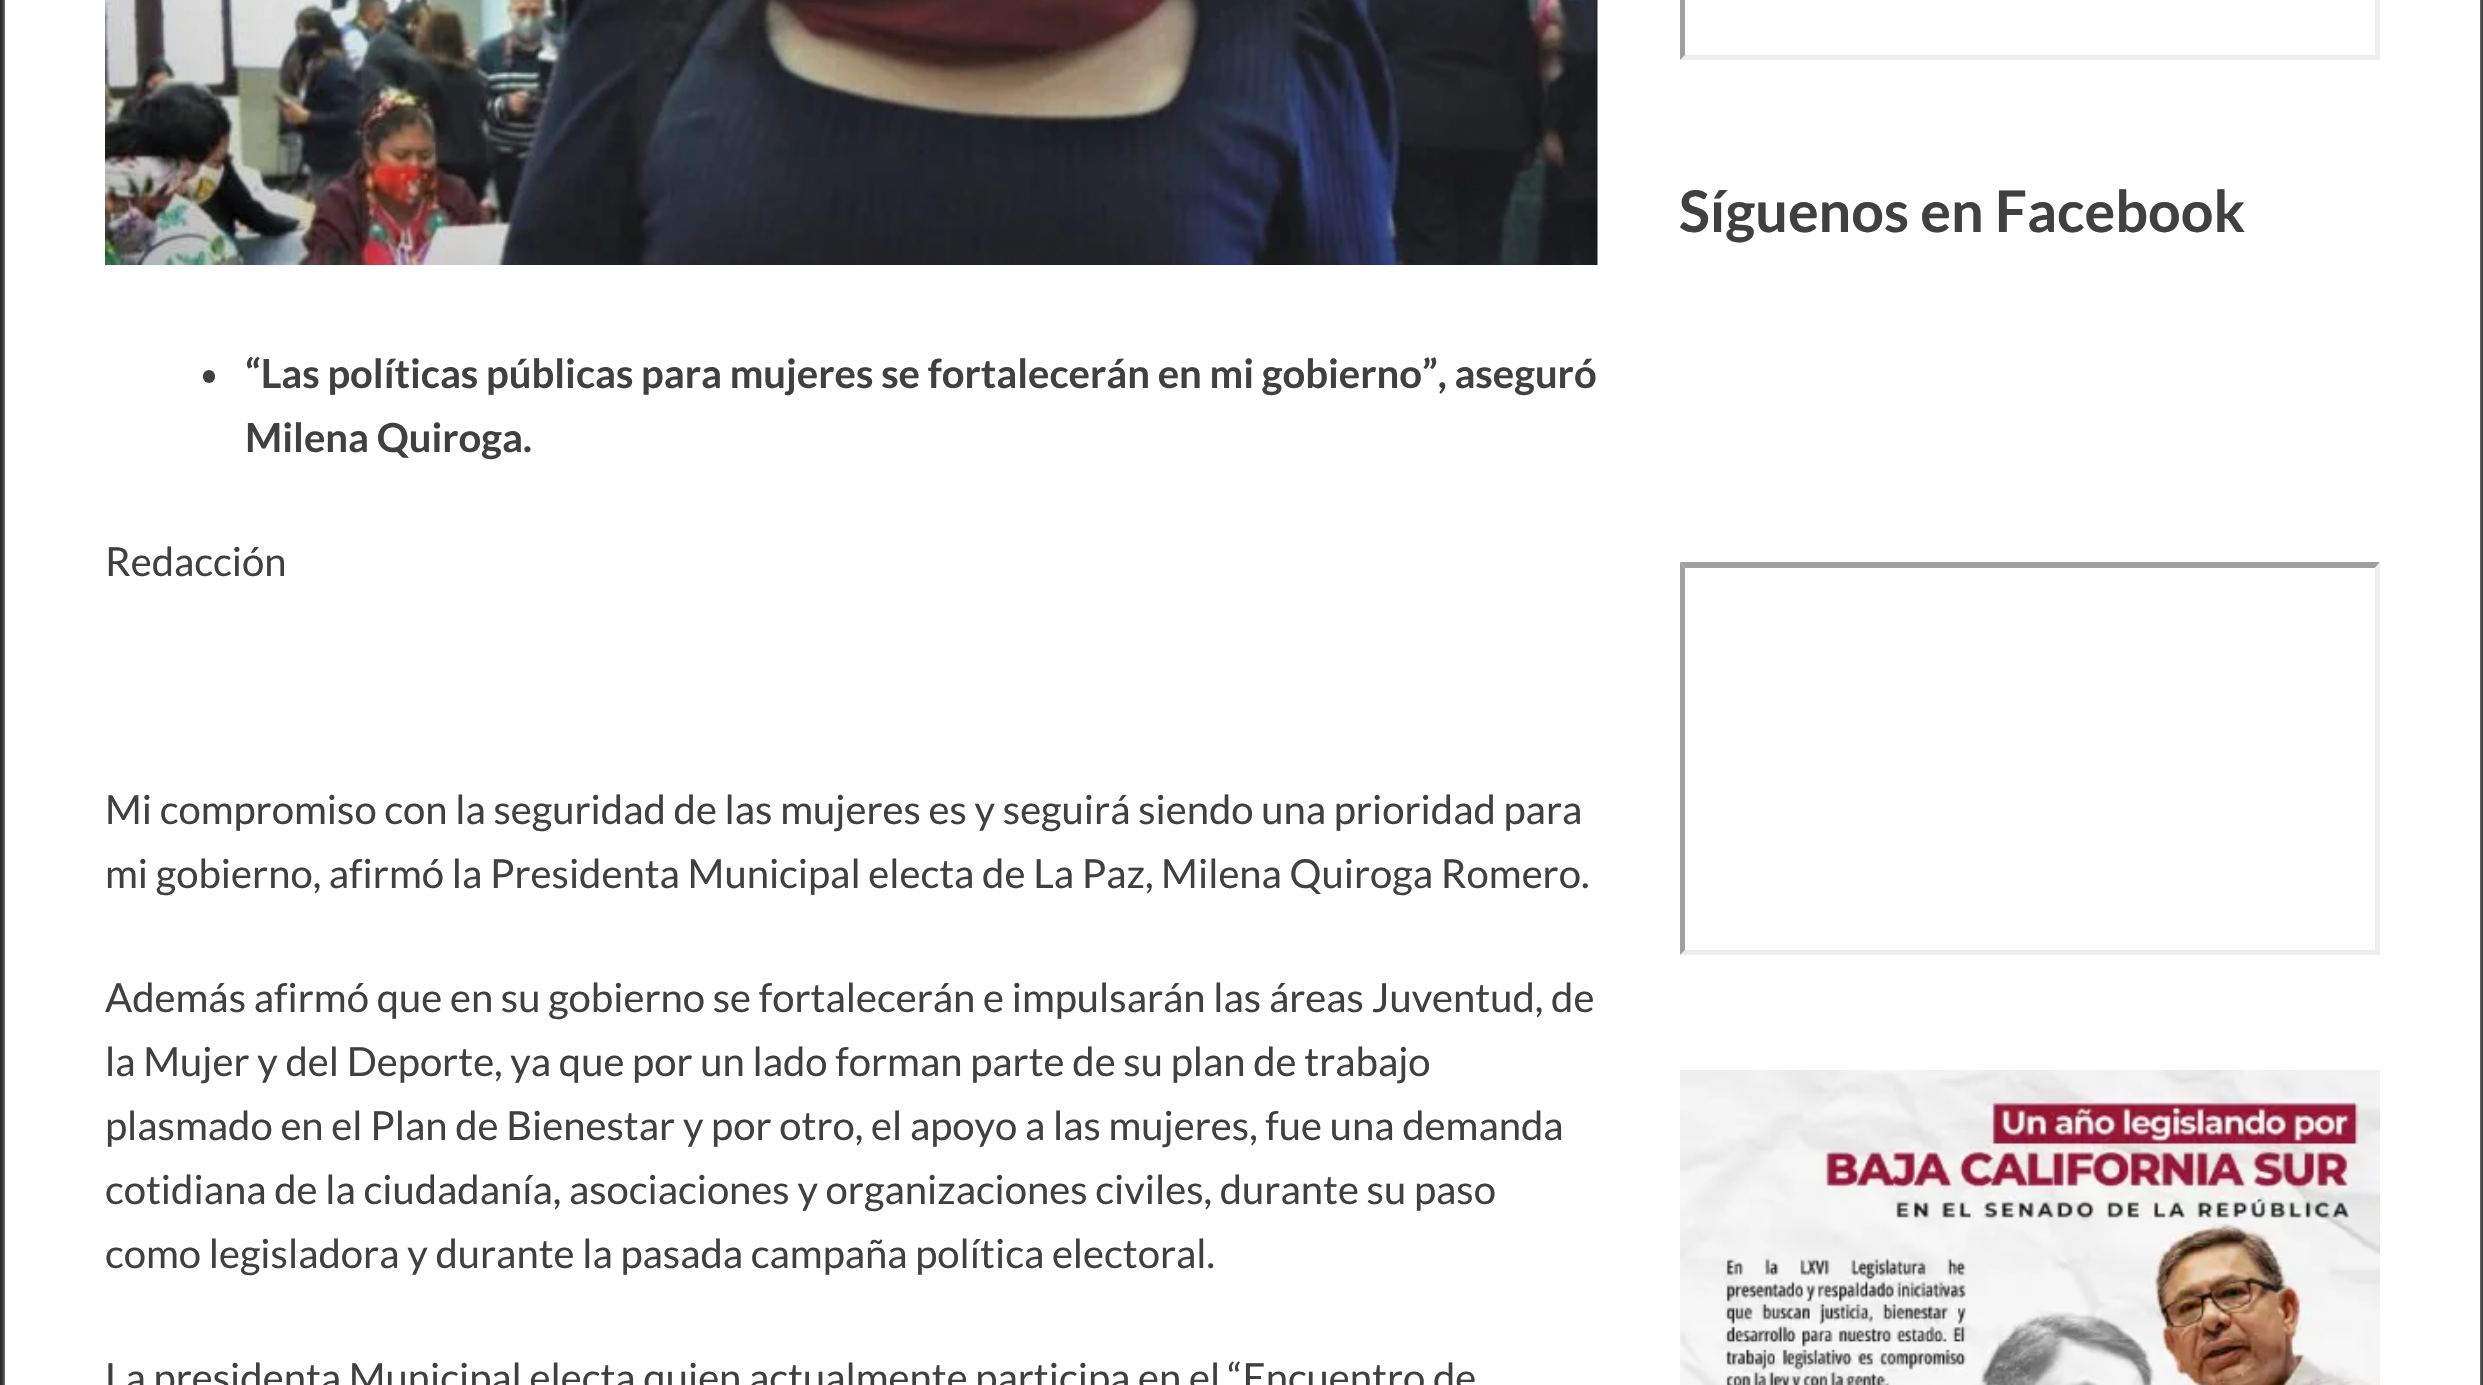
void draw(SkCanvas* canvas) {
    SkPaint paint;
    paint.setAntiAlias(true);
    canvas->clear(0xFF222222);
    paint.setColor(0xFFBBBBBB);
    paint.setMaskFilter(SkMaskFilter::MakeBlur(kNormal_SkBlurStyle, 2.5f));
    canvas->drawRect(SkRect::MakeXYWH(5, -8, 2475, 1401), paint);
    paint.setMaskFilter(nullptr);
    paint.setColor(0xFFFFFFFF);
    canvas->drawRect(SkRect::MakeXYWH(5, 0, 2475, 1385), paint);
    paint.setColor(0xFFEEEEEE);
    canvas->drawPath(SkPathBuilder().moveTo(2380, -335).lineTo(2380, 60).lineTo(2375, 55).lineTo(2375, -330).close().detach(), paint);
    canvas->drawPath(SkPathBuilder().moveTo(2380, 60).lineTo(1680, 60).lineTo(1685, 55).lineTo(2375, 55).close().detach(), paint);
    paint.setColor(0xFF9F9F9F);
    canvas->drawPath(SkPathBuilder().moveTo(1680, 60).lineTo(1680, -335).lineTo(1685, -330).lineTo(1685, 55).close().detach(), paint);
    SkFont font1(fontMgr->matchFamilyStyle("Lato", SkFontStyle::Bold()), 57.5f);
    font1.setSubpixel(true);
    paint.setColor(0xFF404040);
    canvas->drawString("Síguenos en Facebook", 1679, 232, font1, paint);
    paint.setColor(0xFF9F9F9F);
    canvas->drawPath(SkPathBuilder().moveTo(1680, 562).lineTo(2380, 562).lineTo(2375, 568).lineTo(1685, 568).close().detach(), paint);
    paint.setColor(0xFFEEEEEE);
    canvas->drawPath(SkPathBuilder().moveTo(2380, 562).lineTo(2380, 955).lineTo(2375, 950).lineTo(2375, 568).close().detach(), paint);
    canvas->drawPath(SkPathBuilder().moveTo(2380, 955).lineTo(1680, 955).lineTo(1685, 950).lineTo(2375, 950).close().detach(), paint);
    paint.setColor(0xFF9F9F9F);
    canvas->drawPath(SkPathBuilder().moveTo(1680, 955).lineTo(1680, 562).lineTo(1685, 568).lineTo(1685, 950).close().detach(), paint);
    canvas->drawImageRect(SkImages::DeferredFromEncodedData(SkData::MakeFromFileName("img1.png")), SkRect::MakeXYWH(1680, 1070, 700, 315), SkSamplingOptions());
    canvas->drawImageRect(SkImages::DeferredFromEncodedData(SkData::MakeFromFileName("img2.png")), SkRect::MakeXYWH(105, 0, 1493, 265), SkSamplingOptions());
    paint.setColor(0xFF404040);
    canvas->drawRoundRect(SkRect::MakeXYWH(203, 370, 12, 13), 6, 6, paint);
    SkFont font2(fontMgr->matchFamilyStyle("Lato", SkFontStyle::Bold()), 40);
    font2.setSubpixel(true);
    canvas->drawString("“Las políticas públicas para mujeres se fortalecerán en mi gobierno”, aseguró", 245, 388, font2, paint);
    canvas->drawString("Milena Quiroga.", 245, 452, font2, paint);
    SkFont font3(fontMgr->matchFamilyStyle("Lato", SkFontStyle::Normal()), 40);
    font3.setSubpixel(true);
    canvas->drawString("Redacción", 105, 576, font3, paint);
    canvas->drawString("Mi compromiso con la seguridad de las mujeres es y seguirá siendo una prioridad para", 105, 824, font3, paint);
    canvas->drawString("mi gobierno, afirmó la Presidenta Municipal electa de La Paz, Milena Quiroga Romero.", 105, 888, font3, paint);
    canvas->drawString("Además afirmó que en su gobierno se fortalecerán e impulsarán las áreas Juventud, de", 105, 1012, font3, paint);
    canvas->drawString("la Mujer y del Deporte, ya que por un lado forman parte de su plan de trabajo", 105, 1076, font3, paint);
    canvas->drawString("plasmado en el Plan de Bienestar y por otro, el apoyo a las mujeres, fue una demanda", 105, 1140, font3, paint);
    canvas->drawString("cotidiana de la ciudadanía, asociaciones y organizaciones civiles, durante su paso", 105, 1204, font3, paint);
    canvas->drawString("como legisladora y durante la pasada campaña política electoral.", 105, 1268, font3, paint);
    canvas->drawString("La presidenta Municipal electa quien actualmente participa en el “Encuentro de", 105, 1392, font3, paint);
}
